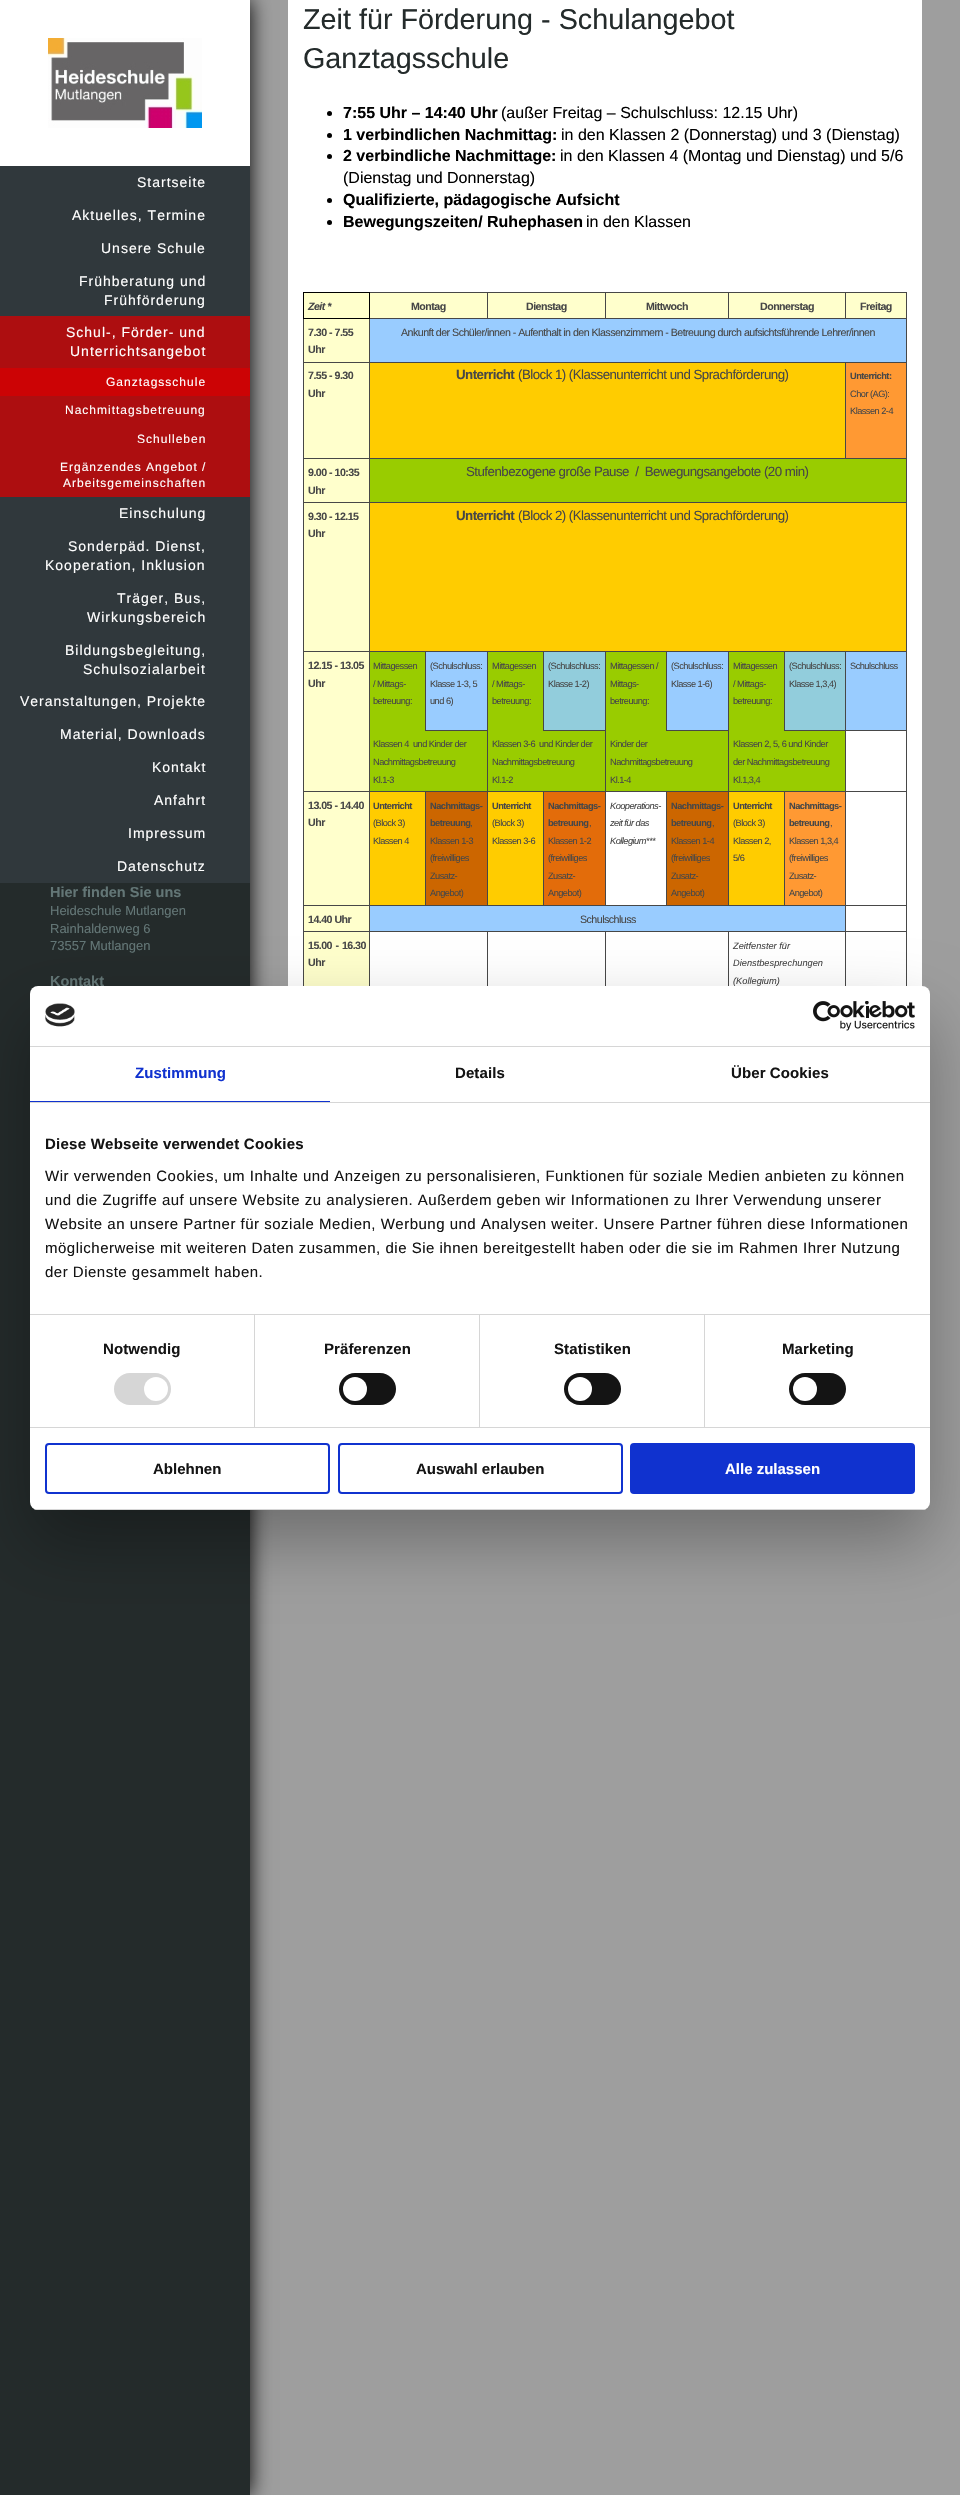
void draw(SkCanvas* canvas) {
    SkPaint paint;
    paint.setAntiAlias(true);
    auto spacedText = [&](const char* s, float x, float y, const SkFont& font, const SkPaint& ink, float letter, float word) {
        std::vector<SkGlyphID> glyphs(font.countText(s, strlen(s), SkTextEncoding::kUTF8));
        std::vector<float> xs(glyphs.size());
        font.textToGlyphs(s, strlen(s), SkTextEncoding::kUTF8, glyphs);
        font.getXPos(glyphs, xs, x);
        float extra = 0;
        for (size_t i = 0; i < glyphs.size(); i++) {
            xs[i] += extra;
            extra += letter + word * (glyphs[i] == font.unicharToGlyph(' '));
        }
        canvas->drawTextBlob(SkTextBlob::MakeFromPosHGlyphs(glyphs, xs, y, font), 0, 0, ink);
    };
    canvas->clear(0xFF9E9E9E);
    paint.setColor(0xFF000000);
    paint.setMaskFilter(SkMaskFilter::MakeBlur(kNormal_SkBlurStyle, 10));
    canvas->drawRect(SkRect::MakeXYWH(0, 0, 250, 2495), paint);
    paint.setMaskFilter(nullptr);
    paint.setColor(0xFF242B2B);
    canvas->drawRect(SkRect::MakeXYWH(0, 883, 250, 1612), paint);
    paint.setColor(0xFFFFFFFF);
    canvas->drawRect(SkRect::MakeXYWH(288, 0, 634, 986), paint);
    SkFont font1(fontMgr->matchFamilyStyle("Liberation Sans", SkFontStyle::Normal()), 28.75f);
    font1.setSubpixel(true);
    paint.setColor(0xFF242B2B);
    canvas->drawString("Zeit für Förderung - Schulangebot", 303, 29, font1, paint);
    canvas->drawString("Ganztagsschule", 303, 68, font1, paint);
    paint.setColor(0xFF000000);
    canvas->drawCircle(329.5f, 113.5f, 2.5f, paint);
    SkFont font2(fontMgr->matchFamilyStyle("Liberation Sans", SkFontStyle::Bold()), 16);
    font2.setSubpixel(true);
    canvas->drawString("7:55 Uhr – 14:40 Uhr", 343, 118, font2, paint);
    SkFont font3(fontMgr->matchFamilyStyle("Liberation Sans", SkFontStyle::Normal()), 16);
    font3.setSubpixel(true);
    canvas->drawString("(außer Freitag – Schulschluss: 12.15 Uhr)", 501, 118, font3, paint);
    canvas->drawCircle(329.5f, 135.5f, 2.5f, paint);
    canvas->drawString("1 verbindlichen Nachmittag:", 343, 140, font2, paint);
    canvas->drawString("in den Klassen 2 (Donnerstag) und 3 (Dienstag)", 561, 140, font3, paint);
    canvas->drawCircle(329.5f, 156.5f, 2.5f, paint);
    canvas->drawString("2 verbindliche Nachmittage:", 343, 161, font2, paint);
    canvas->drawString("in den Klassen 4 (Montag und Dienstag) und 5/6", 560, 161, font3, paint);
    canvas->drawString("(Dienstag und Donnerstag)", 343, 183, font3, paint);
    canvas->drawCircle(329.5f, 200.5f, 2.5f, paint);
    canvas->drawString("Qualifizierte, pädagogische Aufsicht", 343, 205, font2, paint);
    canvas->drawCircle(329.5f, 222.5f, 2.5f, paint);
    canvas->drawString("Bewegungszeiten/ Ruhephasen", 343, 227, font2, paint);
    canvas->drawString("in den Klassen", 586, 227, font3, paint);
    paint.setColor(0xFFFFFFCC);
    canvas->drawRect(SkRect::MakeXYWH(304, 293, 65, 25), paint);
    paint.setColor(0xFF474747);
    canvas->drawRect(SkRect::MakeXYWH(369, 292, 538, 1), paint);
    paint.setColor(0xFF000000);
    canvas->drawRect(SkRect::MakeXYWH(303, 292, 67, 1), paint);
    paint.setColor(0xFF474747);
    canvas->drawRect(SkRect::MakeXYWH(906, 318, 1, 675), paint);
    canvas->drawRect(SkRect::MakeXYWH(906, 292, 1, 27), paint);
    canvas->drawRect(SkRect::MakeXYWH(845, 318, 62, 1), paint);
    canvas->drawRect(SkRect::MakeXYWH(845, 292, 1, 27), paint);
    canvas->drawRect(SkRect::MakeXYWH(728, 318, 118, 1), paint);
    canvas->drawRect(SkRect::MakeXYWH(728, 292, 1, 27), paint);
    canvas->drawRect(SkRect::MakeXYWH(605, 318, 124, 1), paint);
    canvas->drawRect(SkRect::MakeXYWH(605, 292, 1, 27), paint);
    canvas->drawRect(SkRect::MakeXYWH(487, 318, 119, 1), paint);
    canvas->drawRect(SkRect::MakeXYWH(487, 292, 1, 27), paint);
    canvas->drawRect(SkRect::MakeXYWH(845, 458, 62, 1), paint);
    canvas->drawRect(SkRect::MakeXYWH(845, 362, 1, 97), paint);
    canvas->drawRect(SkRect::MakeXYWH(845, 931, 1, 62), paint);
    canvas->drawRect(SkRect::MakeXYWH(845, 931, 62, 1), paint);
    canvas->drawRect(SkRect::MakeXYWH(845, 905, 1, 27), paint);
    canvas->drawRect(SkRect::MakeXYWH(845, 905, 62, 1), paint);
    canvas->drawRect(SkRect::MakeXYWH(845, 791, 1, 115), paint);
    canvas->drawRect(SkRect::MakeXYWH(845, 791, 62, 1), paint);
    canvas->drawRect(SkRect::MakeXYWH(845, 730, 1, 62), paint);
    canvas->drawRect(SkRect::MakeXYWH(784, 905, 62, 1), paint);
    canvas->drawRect(SkRect::MakeXYWH(784, 791, 1, 115), paint);
    canvas->drawRect(SkRect::MakeXYWH(728, 905, 57, 1), paint);
    canvas->drawRect(SkRect::MakeXYWH(728, 791, 1, 115), paint);
    canvas->drawRect(SkRect::MakeXYWH(728, 791, 118, 1), paint);
    canvas->drawRect(SkRect::MakeXYWH(728, 651, 1, 141), paint);
    canvas->drawRect(SkRect::MakeXYWH(666, 905, 63, 1), paint);
    canvas->drawRect(SkRect::MakeXYWH(666, 791, 1, 115), paint);
    canvas->drawRect(SkRect::MakeXYWH(605, 905, 62, 1), paint);
    canvas->drawRect(SkRect::MakeXYWH(605, 791, 1, 115), paint);
    canvas->drawRect(SkRect::MakeXYWH(605, 791, 124, 1), paint);
    canvas->drawRect(SkRect::MakeXYWH(605, 651, 1, 141), paint);
    canvas->drawRect(SkRect::MakeXYWH(543, 905, 63, 1), paint);
    canvas->drawRect(SkRect::MakeXYWH(543, 791, 1, 115), paint);
    canvas->drawRect(SkRect::MakeXYWH(487, 905, 57, 1), paint);
    canvas->drawRect(SkRect::MakeXYWH(487, 791, 1, 115), paint);
    canvas->drawRect(SkRect::MakeXYWH(487, 791, 119, 1), paint);
    canvas->drawRect(SkRect::MakeXYWH(487, 651, 1, 141), paint);
    canvas->drawRect(SkRect::MakeXYWH(425, 905, 63, 1), paint);
    canvas->drawRect(SkRect::MakeXYWH(425, 791, 1, 115), paint);
    canvas->drawRect(SkRect::MakeXYWH(369, 931, 1, 62), paint);
    canvas->drawRect(SkRect::MakeXYWH(487, 931, 1, 62), paint);
    canvas->drawRect(SkRect::MakeXYWH(605, 931, 1, 62), paint);
    canvas->drawRect(SkRect::MakeXYWH(728, 931, 1, 62), paint);
    canvas->drawRect(SkRect::MakeXYWH(369, 931, 477, 1), paint);
    canvas->drawRect(SkRect::MakeXYWH(369, 905, 1, 27), paint);
    canvas->drawRect(SkRect::MakeXYWH(369, 905, 57, 1), paint);
    canvas->drawRect(SkRect::MakeXYWH(369, 791, 1, 115), paint);
    canvas->drawRect(SkRect::MakeXYWH(369, 791, 119, 1), paint);
    canvas->drawRect(SkRect::MakeXYWH(369, 651, 1, 141), paint);
    paint.setColor(0xFF99CC00);
    canvas->drawRect(SkRect::MakeXYWH(370, 730, 117, 61), paint);
    paint.setColor(0xFF474747);
    canvas->drawRect(SkRect::MakeXYWH(425, 730, 63, 1), paint);
    canvas->drawRect(SkRect::MakeXYWH(425, 651, 1, 80), paint);
    paint.setColor(0xFF99CC00);
    canvas->drawRect(SkRect::MakeXYWH(488, 730, 117, 61), paint);
    paint.setColor(0xFF474747);
    canvas->drawRect(SkRect::MakeXYWH(543, 730, 63, 1), paint);
    canvas->drawRect(SkRect::MakeXYWH(543, 651, 1, 80), paint);
    paint.setColor(0xFF99CC00);
    canvas->drawRect(SkRect::MakeXYWH(606, 730, 122, 61), paint);
    paint.setColor(0xFF474747);
    canvas->drawRect(SkRect::MakeXYWH(666, 730, 63, 1), paint);
    canvas->drawRect(SkRect::MakeXYWH(666, 651, 1, 80), paint);
    canvas->drawRect(SkRect::MakeXYWH(845, 730, 62, 1), paint);
    canvas->drawRect(SkRect::MakeXYWH(845, 651, 1, 80), paint);
    paint.setColor(0xFF99CC00);
    canvas->drawRect(SkRect::MakeXYWH(729, 730, 116, 61), paint);
    paint.setColor(0xFF474747);
    canvas->drawRect(SkRect::MakeXYWH(784, 730, 62, 1), paint);
    canvas->drawRect(SkRect::MakeXYWH(784, 651, 1, 80), paint);
    canvas->drawRect(SkRect::MakeXYWH(369, 651, 538, 1), paint);
    canvas->drawRect(SkRect::MakeXYWH(369, 502, 1, 150), paint);
    canvas->drawRect(SkRect::MakeXYWH(369, 502, 538, 1), paint);
    canvas->drawRect(SkRect::MakeXYWH(369, 458, 1, 45), paint);
    canvas->drawRect(SkRect::MakeXYWH(369, 458, 477, 1), paint);
    canvas->drawRect(SkRect::MakeXYWH(369, 362, 1, 97), paint);
    canvas->drawRect(SkRect::MakeXYWH(369, 362, 538, 1), paint);
    canvas->drawRect(SkRect::MakeXYWH(369, 318, 1, 45), paint);
    canvas->drawRect(SkRect::MakeXYWH(369, 318, 119, 1), paint);
    paint.setColor(0xFF000000);
    canvas->drawRect(SkRect::MakeXYWH(369, 292, 1, 27), paint);
    paint.setColor(0xFF474747);
    canvas->drawRect(SkRect::MakeXYWH(303, 931, 1, 62), paint);
    canvas->drawRect(SkRect::MakeXYWH(303, 931, 67, 1), paint);
    canvas->drawRect(SkRect::MakeXYWH(303, 905, 1, 27), paint);
    canvas->drawRect(SkRect::MakeXYWH(303, 905, 67, 1), paint);
    canvas->drawRect(SkRect::MakeXYWH(303, 791, 1, 115), paint);
    canvas->drawRect(SkRect::MakeXYWH(303, 791, 67, 1), paint);
    canvas->drawRect(SkRect::MakeXYWH(303, 651, 1, 141), paint);
    canvas->drawRect(SkRect::MakeXYWH(303, 651, 67, 1), paint);
    canvas->drawRect(SkRect::MakeXYWH(303, 502, 1, 150), paint);
    canvas->drawRect(SkRect::MakeXYWH(303, 502, 67, 1), paint);
    canvas->drawRect(SkRect::MakeXYWH(303, 458, 1, 45), paint);
    canvas->drawRect(SkRect::MakeXYWH(303, 458, 67, 1), paint);
    canvas->drawRect(SkRect::MakeXYWH(303, 362, 1, 97), paint);
    canvas->drawRect(SkRect::MakeXYWH(303, 362, 67, 1), paint);
    canvas->drawRect(SkRect::MakeXYWH(303, 318, 1, 45), paint);
    paint.setColor(0xFF000000);
    canvas->drawRect(SkRect::MakeXYWH(303, 318, 67, 1), paint);
    canvas->drawRect(SkRect::MakeXYWH(303, 292, 1, 27), paint);
    SkFont font4(fontMgr->matchFamilyStyle("Liberation Sans", SkFontStyle::BoldItalic()), 10.65f);
    font4.setSubpixel(true);
    paint.setColor(0xFF474747);
    spacedText("Zeit *", 308, 310, font4, paint, -0.53f, 0);
    paint.setColor(0xFFFFFFCC);
    canvas->drawRect(SkRect::MakeXYWH(370, 293, 117, 25), paint);
    SkFont font5(fontMgr->matchFamilyStyle("Liberation Sans", SkFontStyle::Bold()), 10.65f);
    font5.setSubpixel(true);
    paint.setColor(0xFF474747);
    spacedText("Montag", 411, 310, font5, paint, -0.53f, 0);
    paint.setColor(0xFFFFFFCC);
    canvas->drawRect(SkRect::MakeXYWH(488, 293, 117, 25), paint);
    paint.setColor(0xFF474747);
    spacedText("Dienstag", 526, 310, font5, paint, -0.53f, 0);
    paint.setColor(0xFFFFFFCC);
    canvas->drawRect(SkRect::MakeXYWH(606, 293, 122, 25), paint);
    paint.setColor(0xFF474747);
    spacedText("Mittwoch", 646, 310, font5, paint, -0.53f, 0);
    paint.setColor(0xFFFFFFCC);
    canvas->drawRect(SkRect::MakeXYWH(729, 293, 116, 25), paint);
    paint.setColor(0xFF474747);
    spacedText("Donnerstag", 760, 310, font5, paint, -0.53f, 0);
    paint.setColor(0xFFFFFFCC);
    canvas->drawRect(SkRect::MakeXYWH(846, 293, 60, 25), paint);
    paint.setColor(0xFF474747);
    spacedText("Freitag", 860, 310, font5, paint, -0.53f, 0);
    paint.setColor(0xFFFFFFCC);
    canvas->drawRect(SkRect::MakeXYWH(304, 319, 65, 43), paint);
    paint.setColor(0xFF474747);
    spacedText("7.30 - 7.55", 308, 336, font5, paint, -0.53f, 0);
    spacedText("Uhr", 308, 353, font5, paint, -0.53f, 0);
    paint.setColor(0xFF99CCFF);
    canvas->drawRect(SkRect::MakeXYWH(370, 319, 536, 43), paint);
    SkFont font6(fontMgr->matchFamilyStyle("Liberation Sans", SkFontStyle::Normal()), 10.65f);
    font6.setSubpixel(true);
    paint.setColor(0xFF474747);
    spacedText("Ankunft der Schüler/innen - Aufenthalt in den Klassenzimmern - Betreuung durch aufsichtsführende Lehrer/innen", 401, 336, font6, paint, -0.53f, 0);
    paint.setColor(0xFFFFFFCC);
    canvas->drawRect(SkRect::MakeXYWH(304, 363, 65, 95), paint);
    paint.setColor(0xFF474747);
    spacedText("7.55 - 9.30", 308, 379, font5, paint, -0.53f, 0);
    spacedText("Uhr", 308, 397, font5, paint, -0.53f, 0);
    paint.setColor(0xFFFFCC00);
    canvas->drawRect(SkRect::MakeXYWH(370, 363, 475, 95), paint);
    SkFont font7(fontMgr->matchFamilyStyle("Liberation Sans", SkFontStyle::Bold()), 13.3f);
    font7.setSubpixel(true);
    paint.setColor(0xFF474747);
    spacedText("Unterricht", 456, 379, font7, paint, -0.53f, 0);
    SkFont font8(fontMgr->matchFamilyStyle("Liberation Sans", SkFontStyle::Normal()), 13.3f);
    font8.setSubpixel(true);
    spacedText("(Block 1) (Klassenunterricht und Sprachförderung)", 518, 379, font8, paint, -0.53f, 0);
    paint.setColor(0xFFFF9933);
    canvas->drawRect(SkRect::MakeXYWH(846, 363, 60, 95), paint);
    SkFont font9(fontMgr->matchFamilyStyle("Liberation Sans", SkFontStyle::Bold()), 9.25f);
    font9.setSubpixel(true);
    paint.setColor(0xFF474747);
    spacedText("Unterricht:", 850, 379, font9, paint, -0.53f, 0);
    SkFont font10(fontMgr->matchFamilyStyle("Liberation Sans", SkFontStyle::Normal()), 9.25f);
    font10.setSubpixel(true);
    spacedText("Chor (AG):", 850, 397, font10, paint, -0.53f, 0);
    spacedText("Klassen 2-4", 850, 414, font10, paint, -0.53f, 0);
    paint.setColor(0xFFFFFFCC);
    canvas->drawRect(SkRect::MakeXYWH(304, 459, 65, 43), paint);
    paint.setColor(0xFF474747);
    spacedText("9.00 - 10:35", 308, 476, font5, paint, -0.53f, 0);
    spacedText("Uhr", 308, 494, font5, paint, -0.53f, 0);
    paint.setColor(0xFF99CC00);
    canvas->drawRect(SkRect::MakeXYWH(370, 459, 536, 43), paint);
    paint.setColor(0xFF474747);
    spacedText("Stufenbezogene große Pause  /  Bewegungsangebote (20 min)", 466, 476, font8, paint, -0.53f, 0);
    paint.setColor(0xFFFFFFCC);
    canvas->drawRect(SkRect::MakeXYWH(304, 503, 65, 148), paint);
    paint.setColor(0xFF474747);
    spacedText("9.30 - 12.15", 308, 520, font5, paint, -0.53f, 0);
    spacedText("Uhr", 308, 537, font5, paint, -0.53f, 0);
    paint.setColor(0xFFFFCC00);
    canvas->drawRect(SkRect::MakeXYWH(370, 503, 536, 148), paint);
    paint.setColor(0xFF474747);
    spacedText("Unterricht", 456, 520, font7, paint, -0.53f, 0);
    spacedText("(Block 2) (Klassenunterricht und Sprachförderung)", 518, 520, font8, paint, -0.53f, 0);
    paint.setColor(0xFFFFFFCC);
    canvas->drawRect(SkRect::MakeXYWH(304, 652, 65, 139), paint);
    paint.setColor(0xFF474747);
    spacedText("12.15 - 13.05", 308, 669, font5, paint, -0.53f, 0);
    spacedText("Uhr", 308, 687, font5, paint, -0.53f, 0);
    paint.setColor(0xFF99CC00);
    canvas->drawRect(SkRect::MakeXYWH(370, 652, 55, 78), paint);
    paint.setColor(0xFF474747);
    spacedText("Mittagessen", 373, 669, font10, paint, -0.53f, 0);
    spacedText("/ Mittags-", 373, 687, font10, paint, -0.53f, 0);
    spacedText("betreuung:", 373, 704, font10, paint, -0.53f, 0);
    paint.setColor(0xFF99CCFF);
    canvas->drawRect(SkRect::MakeXYWH(426, 652, 61, 78), paint);
    paint.setColor(0xFF474747);
    spacedText("(Schulschluss:", 430, 669, font10, paint, -0.53f, 0);
    spacedText("Klasse 1-3, 5", 430, 687, font10, paint, -0.53f, 0);
    spacedText("und 6)", 430, 704, font10, paint, -0.53f, 0);
    paint.setColor(0xFF99CC00);
    canvas->drawRect(SkRect::MakeXYWH(488, 652, 55, 78), paint);
    paint.setColor(0xFF474747);
    spacedText("Mittagessen", 492, 669, font10, paint, -0.53f, 0);
    spacedText("/ Mittags-", 492, 687, font10, paint, -0.53f, 0);
    spacedText("betreuung:", 492, 704, font10, paint, -0.53f, 0);
    paint.setColor(0xFF92CDDC);
    canvas->drawRect(SkRect::MakeXYWH(544, 652, 61, 78), paint);
    paint.setColor(0xFF474747);
    spacedText("(Schulschluss:", 548, 669, font10, paint, -0.53f, 0);
    spacedText("Klasse 1-2)", 548, 687, font10, paint, -0.53f, 0);
    paint.setColor(0xFF99CC00);
    canvas->drawRect(SkRect::MakeXYWH(606, 652, 60, 78), paint);
    paint.setColor(0xFF474747);
    spacedText("Mittagessen /", 610, 669, font10, paint, -0.53f, 0);
    spacedText("Mittags-", 610, 687, font10, paint, -0.53f, 0);
    spacedText("betreuung:", 610, 704, font10, paint, -0.53f, 0);
    paint.setColor(0xFF99CCFF);
    canvas->drawRect(SkRect::MakeXYWH(667, 652, 61, 78), paint);
    paint.setColor(0xFF474747);
    spacedText("(Schulschluss:", 671, 669, font10, paint, -0.53f, 0);
    spacedText("Klasse 1-6)", 671, 687, font10, paint, -0.53f, 0);
    paint.setColor(0xFF99CC00);
    canvas->drawRect(SkRect::MakeXYWH(729, 652, 55, 78), paint);
    paint.setColor(0xFF474747);
    spacedText("Mittagessen", 733, 669, font10, paint, -0.53f, 0);
    spacedText("/ Mittags-", 733, 687, font10, paint, -0.53f, 0);
    spacedText("betreuung:", 733, 704, font10, paint, -0.53f, 0);
    paint.setColor(0xFF92CDDC);
    canvas->drawRect(SkRect::MakeXYWH(785, 652, 60, 78), paint);
    paint.setColor(0xFF474747);
    spacedText("(Schulschluss:", 789, 669, font10, paint, -0.53f, 0);
    spacedText("Klasse 1,3,4)", 789, 687, font10, paint, -0.53f, 0);
    paint.setColor(0xFF99CCFF);
    canvas->drawRect(SkRect::MakeXYWH(846, 652, 60, 78), paint);
    paint.setColor(0xFF474747);
    spacedText("Schulschluss", 850, 669, font10, paint, -0.53f, 0);
    spacedText("Klassen 4  und Kinder der", 373, 747, font10, paint, -0.53f, 0);
    spacedText("Nachmittagsbetreuung", 373, 765, font10, paint, -0.53f, 0);
    spacedText("Kl.1-3", 373, 783, font10, paint, -0.53f, 0);
    spacedText("Klassen 3-6  und Kinder der", 492, 747, font10, paint, -0.53f, 0);
    spacedText("Nachmittagsbetreuung", 492, 765, font10, paint, -0.53f, 0);
    spacedText("Kl.1-2", 492, 783, font10, paint, -0.53f, 0);
    spacedText("Kinder der", 610, 747, font10, paint, -0.53f, 0);
    spacedText("Nachmittagsbetreuung", 610, 765, font10, paint, -0.53f, 0);
    spacedText("Kl.1-4", 610, 783, font10, paint, -0.53f, 0);
    spacedText("Klassen 2, 5, 6 und Kinder", 733, 747, font10, paint, -0.53f, 0);
    spacedText("der Nachmittagsbetreuung", 733, 765, font10, paint, -0.53f, 0);
    spacedText("Kl.1,3,4", 733, 783, font10, paint, -0.53f, 0);
    paint.setColor(0xFFFFFFCC);
    canvas->drawRect(SkRect::MakeXYWH(304, 792, 65, 113), paint);
    paint.setColor(0xFF474747);
    spacedText("13.05 - 14.40", 308, 809, font5, paint, -0.53f, 0);
    spacedText("Uhr", 308, 826, font5, paint, -0.53f, 0);
    paint.setColor(0xFFFFCC00);
    canvas->drawRect(SkRect::MakeXYWH(370, 792, 55, 113), paint);
    paint.setColor(0xFF474747);
    spacedText("Unterricht", 373, 809, font9, paint, -0.53f, 0);
    spacedText("(Block 3)", 373, 826, font10, paint, -0.53f, 0);
    spacedText("Klassen 4", 373, 844, font10, paint, -0.53f, 0);
    paint.setColor(0xFFCC6600);
    canvas->drawRect(SkRect::MakeXYWH(426, 792, 61, 113), paint);
    paint.setColor(0xFF474747);
    spacedText("Nachmittags-", 430, 809, font9, paint, -0.53f, 0);
    spacedText("betreuung", 430, 826, font9, paint, -0.53f, 0);
    spacedText(",", 470, 826, font10, paint, -0.53f, 0);
    spacedText("Klassen 1-3", 430, 844, font10, paint, -0.53f, 0);
    spacedText("(freiwilliges", 430, 861, font10, paint, -0.53f, 0);
    spacedText("Zusatz-", 430, 879, font10, paint, -0.53f, 0);
    spacedText("Angebot)", 430, 896, font10, paint, -0.53f, 0);
    paint.setColor(0xFFFFCC00);
    canvas->drawRect(SkRect::MakeXYWH(488, 792, 55, 113), paint);
    paint.setColor(0xFF474747);
    spacedText("Unterricht", 492, 809, font9, paint, -0.53f, 0);
    spacedText("(Block 3)", 492, 826, font10, paint, -0.53f, 0);
    spacedText("Klassen 3-6", 492, 844, font10, paint, -0.53f, 0);
    paint.setColor(0xFFE36C0A);
    canvas->drawRect(SkRect::MakeXYWH(544, 792, 61, 113), paint);
    paint.setColor(0xFF474747);
    spacedText("Nachmittags-", 548, 809, font9, paint, -0.53f, 0);
    spacedText("betreuung", 548, 826, font9, paint, -0.53f, 0);
    spacedText(",", 589, 826, font10, paint, -0.53f, 0);
    spacedText("Klassen 1-2", 548, 844, font10, paint, -0.53f, 0);
    spacedText("(freiwilliges", 548, 861, font10, paint, -0.53f, 0);
    spacedText("Zusatz-", 548, 879, font10, paint, -0.53f, 0);
    spacedText("Angebot)", 548, 896, font10, paint, -0.53f, 0);
    SkFont font11(fontMgr->matchFamilyStyle("Liberation Sans", SkFontStyle::Italic()), 9.25f);
    font11.setSubpixel(true);
    spacedText("Kooperations-", 610, 809, font11, paint, -0.53f, 0);
    spacedText("zeit für das", 610, 826, font11, paint, -0.53f, 0);
    spacedText("Kollegium***", 610, 844, font11, paint, -0.53f, 0);
    paint.setColor(0xFFCC6600);
    canvas->drawRect(SkRect::MakeXYWH(667, 792, 61, 113), paint);
    paint.setColor(0xFF474747);
    spacedText("Nachmittags-", 671, 809, font9, paint, -0.53f, 0);
    spacedText("betreuung", 671, 826, font9, paint, -0.53f, 0);
    spacedText(",", 712, 826, font10, paint, -0.53f, 0);
    spacedText("Klassen 1-4", 671, 844, font10, paint, -0.53f, 0);
    spacedText("(freiwilliges", 671, 861, font10, paint, -0.53f, 0);
    spacedText("Zusatz-", 671, 879, font10, paint, -0.53f, 0);
    spacedText("Angebot)", 671, 896, font10, paint, -0.53f, 0);
    paint.setColor(0xFFFFCC00);
    canvas->drawRect(SkRect::MakeXYWH(729, 792, 55, 113), paint);
    paint.setColor(0xFF474747);
    spacedText("Unterricht", 733, 809, font9, paint, -0.53f, 0);
    spacedText("(Block 3)", 733, 826, font10, paint, -0.53f, 0);
    spacedText("Klassen 2,", 733, 844, font10, paint, -0.53f, 0);
    spacedText("5/6", 733, 861, font10, paint, -0.53f, 0);
    paint.setColor(0xFFFF9933);
    canvas->drawRect(SkRect::MakeXYWH(785, 792, 60, 113), paint);
    paint.setColor(0xFF474747);
    spacedText("Nachmittags-", 789, 809, font9, paint, -0.53f, 0);
    spacedText("betreuung", 789, 826, font9, paint, -0.53f, 0);
    spacedText(",", 830, 826, font10, paint, -0.53f, 0);
    spacedText("Klassen 1,3,4", 789, 844, font10, paint, -0.53f, 0);
    spacedText("(freiwilliges", 789, 861, font10, paint, -0.53f, 0);
    spacedText("Zusatz-", 789, 879, font10, paint, -0.53f, 0);
    spacedText("Angebot)", 789, 896, font10, paint, -0.53f, 0);
    paint.setColor(0xFFFFFFCC);
    canvas->drawRect(SkRect::MakeXYWH(304, 906, 65, 25), paint);
    paint.setColor(0xFF474747);
    spacedText("14.40 Uhr", 308, 923, font5, paint, -0.53f, 0);
    paint.setColor(0xFF99CCFF);
    canvas->drawRect(SkRect::MakeXYWH(370, 906, 475, 25), paint);
    paint.setColor(0xFF474747);
    spacedText("Schulschluss", 580, 923, font6, paint, -0.53f, 0);
    paint.setColor(0xFFFFFFCC);
    canvas->drawRect(SkRect::MakeXYWH(304, 932, 65, 54), paint);
    paint.setColor(0xFF474747);
    spacedText("15.00 - 16.30", 308, 949, font5, paint, -0.53f, 1);
    spacedText("Uhr", 308, 966, font5, paint, -0.53f, 0);
    canvas->drawString("Zeitfenster für", 733, 949, font11, paint);
    canvas->drawString("Dienstbesprechungen", 733, 966, font11, paint);
    canvas->drawString("(Kollegium)", 733, 984, font11, paint);
    paint.setColor(0xFFFFFFFF);
    canvas->drawRect(SkRect::MakeXYWH(0, 0, 250, 166), paint);
    canvas->drawImageRect(SkImages::DeferredFromEncodedData(SkData::MakeFromFileName("img1.png")), SkRect::MakeXYWH(48, 38, 154, 90), SkSamplingOptions());
    paint.setColor(0xFF30383C);
    canvas->drawRect(SkRect::MakeXYWH(0, 166, 250, 717), paint);
    SkFont font12(fontMgr->matchFamilyStyle("Liberation Sans", SkFontStyle::Normal()), 14);
    font12.setSubpixel(true);
    paint.setColor(0xFFFFFFFF);
    spacedText("Startseite", 137, 187, font12, paint, 1, 0);
    spacedText("Aktuelles, Termine", 72, 220, font12, paint, 1, 0);
    spacedText("Unsere Schule", 101, 253, font12, paint, 1, 0);
    spacedText("Frühberatung und", 79, 286, font12, paint, 1, 0);
    spacedText("Frühförderung", 104, 305, font12, paint, 1, 0);
    paint.setColor(0xFFAD0E10);
    canvas->drawRect(SkRect::MakeXYWH(0, 316, 250, 52), paint);
    paint.setColor(0xFFFFFFFF);
    spacedText("Schul-, Förder- und", 66, 337, font12, paint, 1, 0);
    spacedText("Unterrichtsangebot", 70, 356, font12, paint, 1, 0);
    paint.setColor(0xFFAD0E10);
    canvas->drawRect(SkRect::MakeXYWH(0, 396, 250, 101), paint);
    paint.setColor(0xFFCC0305);
    canvas->drawRect(SkRect::MakeXYWH(0, 368, 250, 28), paint);
    SkFont font13(fontMgr->matchFamilyStyle("Liberation Sans", SkFontStyle::Normal()), 12);
    font13.setSubpixel(true);
    paint.setColor(0xFFFFFFFF);
    spacedText("Ganztagsschule", 106, 386, font13, paint, 1, 0);
    spacedText("Nachmittagsbetreuung", 65, 414, font13, paint, 1, 0);
    spacedText("Schulleben", 137, 443, font13, paint, 1, 0);
    spacedText("Ergänzendes Angebot /", 60, 471, font13, paint, 1, 0);
    spacedText("Arbeitsgemeinschaften", 63, 487, font13, paint, 1, 0);
    spacedText("Einschulung", 119, 518, font12, paint, 1, 0);
    spacedText("Sonderpäd. Dienst,", 68, 551, font12, paint, 1, 0);
    spacedText("Kooperation, Inklusion", 45, 570, font12, paint, 1, 0);
    spacedText("Träger, Bus,", 117, 603, font12, paint, 1, 0);
    spacedText("Wirkungsbereich", 87, 622, font12, paint, 1, 0);
    spacedText("Bildungsbegleitung,", 65, 655, font12, paint, 1, 0);
    spacedText("Schulsozialarbeit", 83, 674, font12, paint, 1, 0);
    spacedText("Veranstaltungen, Projekte", 20, 706, font12, paint, 1, 0);
    spacedText("Material, Downloads", 60, 739, font12, paint, 1, 0);
    spacedText("Kontakt", 152, 772, font12, paint, 1, 0);
    spacedText("Anfahrt", 154, 805, font12, paint, 1, 0);
    spacedText("Impressum", 128, 838, font12, paint, 1, 0);
    spacedText("Datenschutz", 117, 871, font12, paint, 1, 0);
    SkFont font14(fontMgr->matchFamilyStyle("Liberation Sans", SkFontStyle::Bold()), 14.5f);
    font14.setSubpixel(true);
    paint.setColor(0xFF637676);
    canvas->drawString("Hier finden Sie uns", 50, 897, font14, paint);
    SkFont font15(fontMgr->matchFamilyStyle("Liberation Sans", SkFontStyle::Normal()), 13);
    font15.setSubpixel(true);
    canvas->drawString("Heideschule Mutlangen", 50, 915, font15, paint);
    canvas->drawString("Rainhaldenweg 6", 50, 933, font15, paint);
    canvas->drawString("73557 Mutlangen", 50, 950, font15, paint);
    canvas->drawString("Kontakt", 50, 986, font14, paint);
    paint.setColor(0x4D000000);
    paint.setMaskFilter(SkMaskFilter::MakeBlur(kNormal_SkBlurStyle, 34));
    canvas->drawRoundRect(SkRect::MakeXYWH(30, 1018, 900, 524), 8, 8, paint);
    paint.setMaskFilter(nullptr);
    paint.setColor(0xFFFFFFFF);
    canvas->drawRoundRect(SkRect::MakeXYWH(30, 986, 900, 524), 8, 8, paint);
    paint.setColor(0xFFD6D6D6);
    canvas->drawRect(SkRect::MakeXYWH(30, 1046, 900, 1), paint);
    canvas->drawImageRect(SkImages::DeferredFromEncodedData(SkData::MakeFromFileName("img2.png")), SkRect::MakeXYWH(45, 1003, 30, 24), SkSamplingOptions());
    canvas->drawImageRect(SkImages::DeferredFromEncodedData(SkData::MakeFromFileName("img3.png")), SkRect::MakeXYWH(813, 1001, 102, 30), SkSamplingOptions());
    canvas->drawRect(SkRect::MakeXYWH(30, 1102, 900, 1), paint);
    paint.setColor(0xFF1032CF);
    canvas->drawRect(SkRect::MakeXYWH(30, 1101, 300, 1), paint);
    SkFont font16(fontMgr->matchFamilyStyle("Liberation Sans", SkFontStyle::Bold()), 15);
    font16.setSubpixel(true);
    spacedText("Zustimmung", 135, 1078, font16, paint, 0.1f, 0);
    paint.setColor(0xFF141414);
    spacedText("Details", 455, 1078, font16, paint, 0.1f, 0);
    spacedText("Über Cookies", 731, 1078, font16, paint, 0.1f, 0);
    paint.setColor(0xFFD6D6D6);
    canvas->drawRect(SkRect::MakeXYWH(30, 1314, 900, 1), paint);
    paint.setColor(0xFF141414);
    spacedText("Diese Webseite verwendet Cookies", 45, 1149, font16, paint, 0.25f, 0);
    SkFont font17(fontMgr->matchFamilyStyle("Liberation Sans", SkFontStyle::Normal()), 15);
    font17.setSubpixel(true);
    spacedText("Wir verwenden Cookies, um Inhalte und Anzeigen zu personalisieren, Funktionen für soziale Medien anbieten zu können", 45, 1181, font17, paint, 0.5f, 0);
    spacedText("und die Zugriffe auf unsere Website zu analysieren. Außerdem geben wir Informationen zu Ihrer Verwendung unserer", 45, 1205, font17, paint, 0.5f, 0);
    spacedText("Website an unsere Partner für soziale Medien, Werbung und Analysen weiter. Unsere Partner führen diese Informationen", 45, 1229, font17, paint, 0.5f, 0);
    spacedText("möglicherweise mit weiteren Daten zusammen, die Sie ihnen bereitgestellt haben oder die sie im Rahmen Ihrer Nutzung", 45, 1253, font17, paint, 0.5f, 0);
    spacedText("der Dienste gesammelt haben.", 45, 1277, font17, paint, 0.5f, 0);
    paint.setColor(0xFFD6D6D6);
    canvas->drawRect(SkRect::MakeXYWH(30, 1427, 900, 1), paint);
    canvas->drawRect(SkRect::MakeXYWH(254, 1315, 1, 112), paint);
    paint.setColor(0xFF141414);
    spacedText("Notwendig", 103, 1354, font16, paint, 0.1f, 0);
    paint.setColor(0xFFD6D6D6);
    canvas->drawRoundRect(SkRect::MakeXYWH(114, 1373, 57, 32), 16, 16, paint);
    paint.setColor(0xFFFFFFFF);
    canvas->drawCircle(156, 1389, 12, paint);
    paint.setColor(0xFFD6D6D6);
    canvas->drawRect(SkRect::MakeXYWH(479, 1315, 1, 112), paint);
    paint.setColor(0xFF141414);
    spacedText("Präferenzen", 324, 1354, font16, paint, 0.1f, 0);
    canvas->drawRoundRect(SkRect::MakeXYWH(339, 1373, 57, 32), 16, 16, paint);
    paint.setColor(0xFFFFFFFF);
    canvas->drawCircle(355, 1389, 12, paint);
    paint.setColor(0xFFD6D6D6);
    canvas->drawRect(SkRect::MakeXYWH(704, 1315, 1, 112), paint);
    paint.setColor(0xFF141414);
    spacedText("Statistiken", 554, 1354, font16, paint, 0.1f, 0);
    canvas->drawRoundRect(SkRect::MakeXYWH(564, 1373, 57, 32), 16, 16, paint);
    paint.setColor(0xFFFFFFFF);
    canvas->drawCircle(580, 1389, 12, paint);
    paint.setColor(0xFF141414);
    spacedText("Marketing", 782, 1354, font16, paint, 0.1f, 0);
    canvas->drawRoundRect(SkRect::MakeXYWH(789, 1373, 57, 32), 16, 16, paint);
    paint.setColor(0xFFFFFFFF);
    canvas->drawCircle(805, 1389, 12, paint);
    canvas->save();
    canvas->clipPath(SkPathBuilder().moveTo(38, 986).lineTo(922, 986).cubicTo(926.5f, 986, 930, 989.5f, 930, 994).lineTo(930, 1502).cubicTo(930, 1506.5f, 926.5f, 1510, 922, 1510).lineTo(38, 1510).cubicTo(33.5f, 1510, 30, 1506.5f, 30, 1502).lineTo(30, 994).cubicTo(30, 989.5f, 33.5f, 986, 38, 986).close().detach(), true);
    paint.setColor(0xFFD6D6D6);
    canvas->drawRect(SkRect::MakeXYWH(30, 1509, 900, 1), paint);
    canvas->restore();
    paint.setStyle(SkPaint::kStroke_Style);
    paint.setStrokeWidth(2);
    paint.setColor(0xFF1032CF);
    canvas->drawRoundRect(SkRect::MakeXYWH(46, 1444, 283, 49), 3, 3, paint);
    paint.setStyle(SkPaint::kFill_Style);
    paint.setColor(0xFF141414);
    canvas->drawString("Ablehnen", 153, 1474, font16, paint);
    paint.setStyle(SkPaint::kStroke_Style);
    paint.setColor(0xFF1032CF);
    canvas->drawRoundRect(SkRect::MakeXYWH(339, 1444, 283, 49), 3, 3, paint);
    paint.setStyle(SkPaint::kFill_Style);
    paint.setColor(0xFF141414);
    canvas->drawString("Auswahl erlauben", 416, 1474, font16, paint);
    paint.setColor(0xFF1032CF);
    canvas->drawRoundRect(SkRect::MakeXYWH(631, 1444, 283, 49), 3, 3, paint);
    paint.setStyle(SkPaint::kStroke_Style);
    canvas->drawRoundRect(SkRect::MakeXYWH(631, 1444, 283, 49), 3, 3, paint);
    paint.setStyle(SkPaint::kFill_Style);
    paint.setColor(0xFFFFFFFF);
    canvas->drawString("Alle zulassen", 725, 1474, font16, paint);
}
